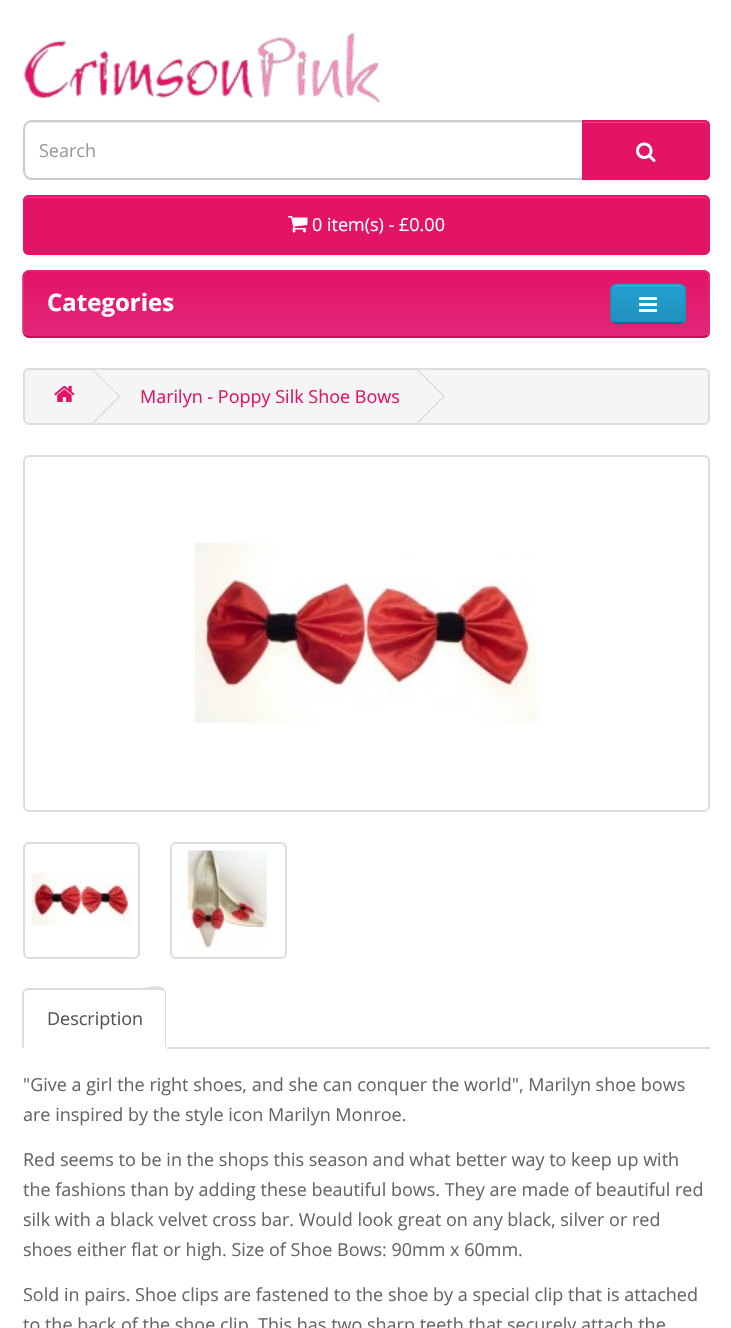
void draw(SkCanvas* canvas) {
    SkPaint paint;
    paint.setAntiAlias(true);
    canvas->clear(0xFFFFFFFF);
    canvas->drawImageRect(SkImages::DeferredFromEncodedData(SkData::MakeFromFileName("img1.png")), SkRect::MakeXYWH(23, 32, 357, 71), SkSamplingOptions());
    paint.setColor(0xFFECECEC);
    canvas->drawPath(SkPathBuilder().moveTo(32, 123).lineTo(582, 123).lineTo(582, 122).lineTo(32, 122).cubicTo(28, 122, 24, 126, 24, 130).cubicTo(24, 126, 27, 123, 32, 123).close().detach(), paint);
    paint.setStyle(SkPaint::kStroke_Style);
    paint.setStrokeWidth(2);
    paint.setColor(0xFFCCCCCC);
    canvas->drawPath(SkPathBuilder().moveTo(32, 121).lineTo(583, 121).lineTo(583, 179).lineTo(32, 179).cubicTo(27.5f, 179, 24, 175.5f, 24, 171).lineTo(24, 129).cubicTo(24, 124.5f, 27.5f, 121, 32, 121).close().detach(), paint);
    SkFont font1(fontMgr->matchFamilyStyle("Open Sans", SkFontStyle::Normal()), 18);
    font1.setSubpixel(true);
    paint.setStyle(SkPaint::kFill_Style);
    paint.setColor(0xFF999999);
    canvas->drawString("Search", 39, 157, font1, paint);
    paint.setColor(0x0D000000);
    paint.setMaskFilter(SkMaskFilter::MakeBlur(kNormal_SkBlurStyle, 1.5f));
    canvas->drawRoundRect(SkRect::MakeXYWH(582, 122, 128, 60), 6, 6, paint);
    paint.setMaskFilter(nullptr);
    paint.setColor(0xFFE31366);
    canvas->drawPath(SkPathBuilder().moveTo(582, 120).lineTo(704, 120).cubicTo(707.5f, 120, 710, 122.5f, 710, 126).lineTo(710, 174).cubicTo(710, 177.5f, 707.5f, 180, 704, 180).lineTo(582, 180).close().detach(), paint);
    paint.setColor(0xFFE94285);
    canvas->drawPath(SkPathBuilder().moveTo(584, 123).lineTo(704, 123).cubicTo(706, 123, 708, 125, 708, 128).lineTo(708, 127).cubicTo(708, 124, 706, 122, 703, 122).lineTo(584, 122).close().detach(), paint);
    paint.setStyle(SkPaint::kStroke_Style);
    paint.setColor(0xFFE31366);
    canvas->drawPath(SkPathBuilder().moveTo(583, 121).lineTo(704, 121).cubicTo(707, 121, 709, 123, 709, 126).lineTo(709, 174).cubicTo(709, 177, 707, 179, 704, 179).lineTo(583, 179).close().detach(), paint);
    canvas->drawImageRect(SkImages::DeferredFromEncodedData(SkData::MakeFromFileName("img2.png")), SkRect::MakeXYWH(636, 142, 20, 20), SkSamplingOptions());
    paint.setStyle(SkPaint::kFill_Style);
    paint.setColor(0x0D000000);
    paint.setMaskFilter(SkMaskFilter::MakeBlur(kNormal_SkBlurStyle, 1.5f));
    canvas->drawRoundRect(SkRect::MakeXYWH(23, 197, 687, 60), 6, 6, paint);
    paint.setMaskFilter(nullptr);
    paint.setColor(0xFFE31366);
    canvas->drawRoundRect(SkRect::MakeXYWH(23, 195, 687, 60), 6, 6, paint);
    paint.setColor(0xFFE94285);
    canvas->drawPath(SkPathBuilder().moveTo(28, 198).lineTo(704, 198).cubicTo(706, 198, 708, 200, 708, 202).cubicTo(708, 199, 706, 197, 703, 197).lineTo(29, 197).cubicTo(26, 197, 24, 199, 24, 202).cubicTo(24, 200, 26, 198, 28, 198).close().detach(), paint);
    paint.setStyle(SkPaint::kStroke_Style);
    paint.setColor(0xFFE31366);
    canvas->drawRoundRect(SkRect::MakeXYWH(24, 196, 685, 58), 5, 5, paint);
    canvas->drawImageRect(SkImages::DeferredFromEncodedData(SkData::MakeFromFileName("img3.png")), SkRect::MakeXYWH(288, 216, 20, 17), SkSamplingOptions());
    paint.setStyle(SkPaint::kFill_Style);
    paint.setColor(0xFFFFFFFF);
    canvas->drawString("0 item(s) - £0.00", 312, 231, font1, paint);
    paint.setColor(0xFFE31366);
    canvas->drawRoundRect(SkRect::MakeXYWH(23, 270, 687, 68), 6, 6, paint);
    canvas->save();
    canvas->clipPath(SkPathBuilder().moveTo(29, 270).lineTo(704, 270).cubicTo(707.5f, 270, 710, 272.5f, 710, 276).lineTo(710, 332).cubicTo(710, 335.5f, 707.5f, 338, 704, 338).lineTo(29, 338).cubicTo(25.5f, 338, 23, 335.5f, 23, 332).lineTo(23, 276).cubicTo(23, 272.5f, 25.5f, 270, 29, 270).close().detach(), true);
    {
        const SkColor colors[] = {0xFFE31366, 0xFFE3277A};
        const float stops[] = {0, 1};
        const SkPoint ends[] = {{366, 271}, {366, 336}};
        paint.setShader(SkGradientShader::MakeLinear(ends, colors, stops, 2, SkTileMode::kClamp));
        paint.setAlpha(255);
    }
    canvas->drawRect(SkRect::MakeXYWH(23, 272, 687, 64), paint);
    canvas->restore();
    paint.setStyle(SkPaint::kStroke_Style);
    paint.setStrokeWidth(1.5f);
    paint.setShader(nullptr);
    paint.setColor(0xFFC50952);
    canvas->drawPath(SkPathBuilder().moveTo(707, 335).cubicTo(706, 336, 705, 337, 703.5f, 337).lineTo(28.5f, 337).cubicTo(27, 337, 26, 336, 25, 335).detach(), paint);
    paint.setColor(0xFFE3277A);
    canvas->drawPath(SkPathBuilder().moveTo(25, 335).cubicTo(24, 334, 23, 333, 23, 331.5f).lineTo(23, 276).cubicTo(23, 274.5f, 24, 273.5f, 25, 272.5f).cubicTo(26, 271.5f, 27, 271, 28.5f, 271).lineTo(703.5f, 271).cubicTo(705, 271, 706, 271.5f, 707, 272.5f).cubicTo(708, 273.5f, 709, 274.5f, 709, 276).lineTo(709, 331.5f).cubicTo(709, 333, 708, 334, 707, 335).detach(), paint);
    SkFont font2(fontMgr->matchFamilyStyle("Open Sans", SkFontStyle::Bold()), 24);
    font2.setSubpixel(true);
    paint.setStyle(SkPaint::kFill_Style);
    paint.setColor(0xFFFFFFFF);
    canvas->drawString("Categories", 47, 311, font2, paint);
    paint.setColor(0x0D000000);
    paint.setMaskFilter(SkMaskFilter::MakeBlur(kNormal_SkBlurStyle, 1.5f));
    canvas->drawRoundRect(SkRect::MakeXYWH(611, 285, 75, 41), 6, 6, paint);
    paint.setMaskFilter(nullptr);
    paint.setColor(0xFF229AC8);
    canvas->drawRoundRect(SkRect::MakeXYWH(611, 284, 75, 40), 6, 6, paint);
    canvas->save();
    canvas->clipPath(SkPathBuilder().moveTo(617, 284).lineTo(680, 284).cubicTo(683.5f, 284, 686, 286.5f, 686, 290).lineTo(686, 318).cubicTo(686, 321.5f, 683.5f, 324, 680, 324).lineTo(617, 324).cubicTo(613.5f, 324, 611, 321.5f, 611, 318).lineTo(611, 290).cubicTo(611, 286.5f, 613.5f, 284, 617, 284).close().detach(), true);
    {
        const SkColor colors[] = {0xFF23A1D1, 0xFF1F90BB};
        const float stops[] = {0, 1};
        const SkPoint ends[] = {{648, 285}, {648, 323}};
        paint.setShader(SkGradientShader::MakeLinear(ends, colors, stops, 2, SkTileMode::kClamp));
        paint.setAlpha(255);
    }
    canvas->drawRect(SkRect::MakeXYWH(611, 285, 75, 38), paint);
    canvas->restore();
    paint.setShader(nullptr);
    paint.setColor(0xFF4FB4DA);
    canvas->drawPath(SkPathBuilder().moveTo(616, 286).lineTo(680, 286).cubicTo(682, 286, 684, 289, 684, 291).cubicTo(684, 283, 674, 285, 669, 285).lineTo(627, 285).cubicTo(622, 285, 612, 283, 612, 291).cubicTo(612, 289, 614, 286, 616, 286).close().detach(), paint);
    paint.setStyle(SkPaint::kStroke_Style);
    paint.setColor(0xFF145E7A);
    canvas->drawPath(SkPathBuilder().moveTo(683, 321.5f).cubicTo(682, 322.5f, 681, 323, 679.5f, 323).lineTo(616.5f, 323).cubicTo(615, 323, 614, 322.5f, 613, 321.5f).detach(), paint);
    paint.setColor(0xFF1F90BB);
    canvas->drawPath(SkPathBuilder().moveTo(613, 321.5f).cubicTo(610.5f, 319.5f, 611, 316, 611, 313).lineTo(611, 304).cubicTo(611, 284, 608, 284, 627, 284).lineTo(669, 284).cubicTo(688, 284, 685, 284, 685, 304).lineTo(685, 313).cubicTo(685, 316, 685.5f, 319.5f, 683, 321.5f).detach(), paint);
    canvas->drawImageRect(SkImages::DeferredFromEncodedData(SkData::MakeFromFileName("img4.png")), SkRect::MakeXYWH(639, 297, 18, 15), SkSamplingOptions());
    paint.setStyle(SkPaint::kFill_Style);
    paint.setColor(0xFFF5F5F5);
    canvas->drawRoundRect(SkRect::MakeXYWH(24, 369, 685, 55), 5, 5, paint);
    paint.setStyle(SkPaint::kStroke_Style);
    paint.setStrokeWidth(2);
    paint.setColor(0xFFDDDDDD);
    canvas->drawRoundRect(SkRect::MakeXYWH(24, 369, 685, 55), 5, 5, paint);
    canvas->drawImageRect(SkImages::DeferredFromEncodedData(SkData::MakeFromFileName("img5.png")), SkRect::MakeXYWH(54, 385, 21, 17), SkSamplingOptions());
    paint.setStyle(SkPaint::kFill_Style);
    canvas->drawPath(SkPathBuilder().moveTo(92, 370).lineTo(93, 369).lineTo(120.5f, 396.5f).lineTo(119.5f, 397.5f).close().detach(), paint);
    canvas->drawPath(SkPathBuilder().moveTo(92, 423).lineTo(119.5f, 395.5f).lineTo(120.5f, 396.5f).lineTo(93, 424).close().detach(), paint);
    paint.setColor(0xFFE31366);
    canvas->drawString("Marilyn - Poppy Silk Shoe Bows", 140, 403, font1, paint);
    paint.setColor(0xFFDDDDDD);
    canvas->drawPath(SkPathBuilder().moveTo(416.5f, 370).lineTo(417.5f, 369).lineTo(445, 396.5f).lineTo(444, 397.5f).close().detach(), paint);
    canvas->drawPath(SkPathBuilder().moveTo(416.5f, 423).lineTo(444, 395.5f).lineTo(445, 396.5f).lineTo(417.5f, 424).close().detach(), paint);
    paint.setStyle(SkPaint::kStroke_Style);
    canvas->drawRoundRect(SkRect::MakeXYWH(24, 456, 685, 355), 5, 5, paint);
    canvas->drawImageRect(SkImages::DeferredFromEncodedData(SkData::MakeFromFileName("img6.png")), SkRect::MakeXYWH(195, 541, 342, 183), SkSamplingOptions());
    canvas->drawRoundRect(SkRect::MakeXYWH(24, 843, 115, 115), 5, 5, paint);
    canvas->drawImageRect(SkImages::DeferredFromEncodedData(SkData::MakeFromFileName("img7.png")), SkRect::MakeXYWH(31, 872, 100, 54), SkSamplingOptions());
    canvas->drawRoundRect(SkRect::MakeXYWH(171, 843, 115, 115), 5, 5, paint);
    canvas->drawImageRect(SkImages::DeferredFromEncodedData(SkData::MakeFromFileName("img8.png")), SkRect::MakeXYWH(178, 850, 91, 100), SkSamplingOptions());
    paint.setStyle(SkPaint::kFill_Style);
    canvas->drawRect(SkRect::MakeXYWH(167, 1047, 543, 2), paint);
    canvas->drawPath(SkPathBuilder().moveTo(28, 990).lineTo(25, 991).lineTo(24, 990).lineTo(26, 988).lineTo(140, 988).cubicTo(148, 988, 160, 983, 165, 990).lineTo(164, 991).cubicTo(163, 991, 162, 990, 160, 990).close().detach(), paint);
    canvas->drawPath(SkPathBuilder().moveTo(165, 990).cubicTo(166, 991, 166, 993, 166, 994).lineTo(166, 1048).lineTo(165, 1047).lineTo(165, 993).lineTo(164, 991).close().detach(), paint);
    canvas->drawPath(SkPathBuilder().moveTo(22, 992).lineTo(24, 990).lineTo(25, 991).lineTo(24, 994).lineTo(24, 1047).lineTo(23, 1048).lineTo(22, 1048).close().detach(), paint);
    paint.setColor(0xFF555555);
    canvas->drawString("Description", 47, 1025, font1, paint);
    paint.setColor(0xFF666666);
    canvas->drawString("\"Give a girl the right shoes, and she can conquer the world\", Marilyn shoe bows", 23, 1091, font1, paint);
    canvas->drawString("are inspired by the style icon Marilyn Monroe.", 23, 1121, font1, paint);
    canvas->drawString("Red seems to be in the shops this season and what better way to keep up with", 23, 1166, font1, paint);
    canvas->drawString("the fashions than by adding these beautiful bows. They are made of beautiful red", 23, 1196, font1, paint);
    canvas->drawString("silk with a black velvet cross bar. Would look great on any black, silver or red", 23, 1226, font1, paint);
    canvas->drawString("shoes either flat or high. Size of Shoe Bows: 90mm x 60mm.", 23, 1256, font1, paint);
    canvas->drawString("Sold in pairs. Shoe clips are fastened to the shoe by a special clip that is attached", 23, 1301, font1, paint);
    canvas->drawString("to the back of the shoe clip. This has two sharp teeth that securely attach the", 23, 1331, font1, paint);
}
